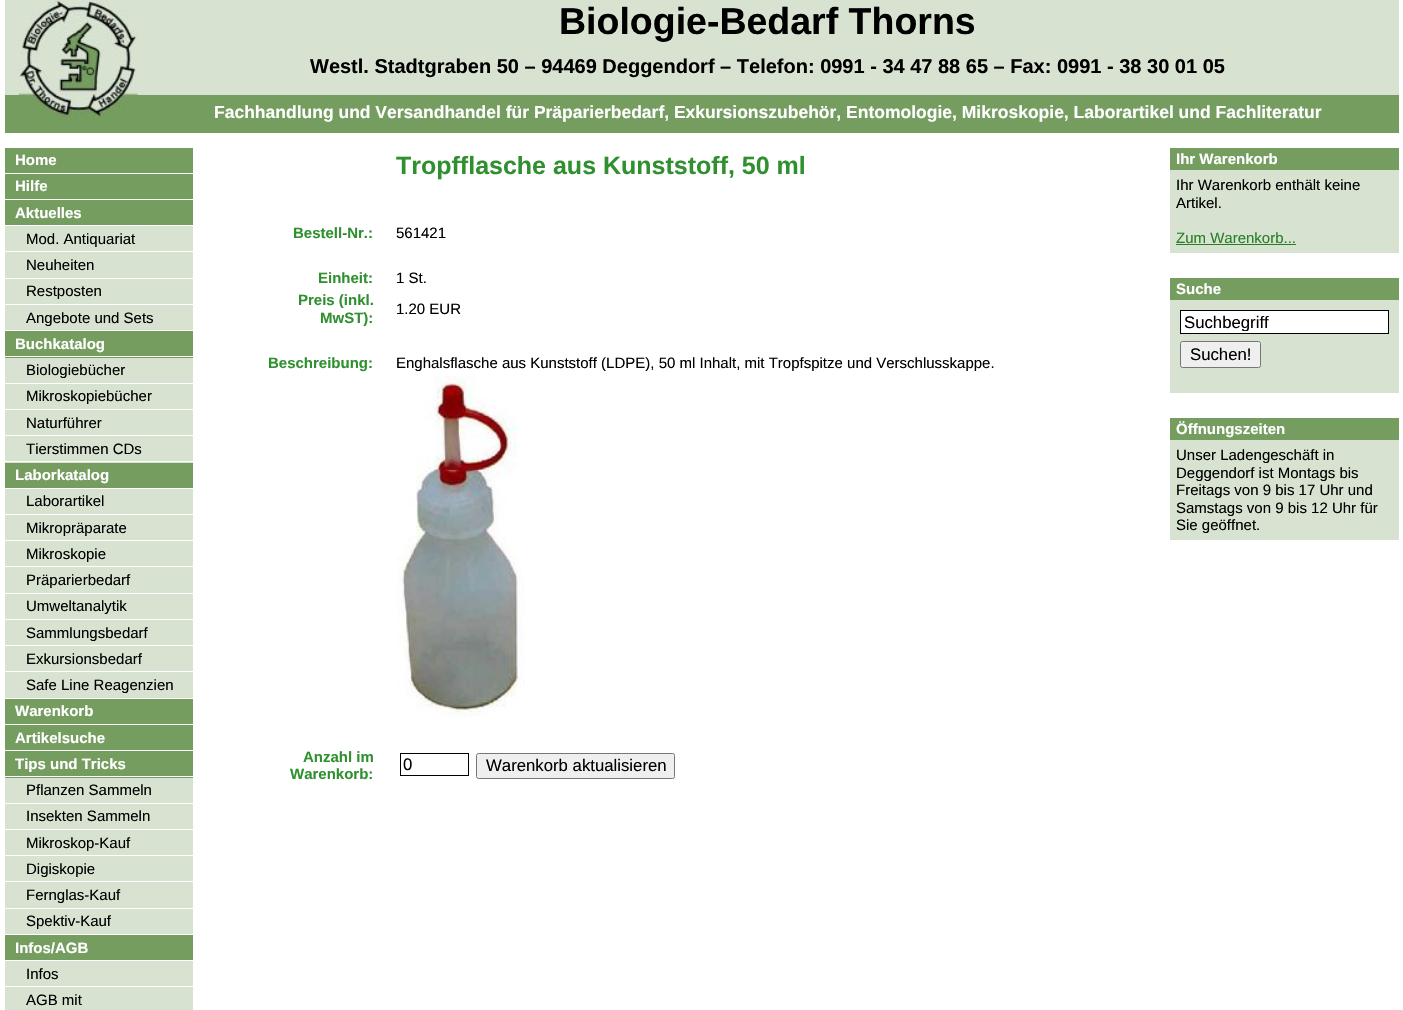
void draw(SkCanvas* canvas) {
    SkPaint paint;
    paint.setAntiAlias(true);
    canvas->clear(0xFFFFFFFF);
    paint.setColor(0xFFD7E2D1);
    canvas->drawRect(SkRect::MakeXYWH(5, 0, 1394, 95), paint);
    paint.setColor(0xFF749D5F);
    canvas->drawRect(SkRect::MakeXYWH(5, 95, 1394, 38), paint);
    canvas->drawImageRect(SkImages::DeferredFromEncodedData(SkData::MakeFromFileName("img1.png")), SkRect::MakeXYWH(18, 0, 120, 118), SkSamplingOptions());
    SkFont font1(fontMgr->matchFamilyStyle("Liberation Sans", SkFontStyle::Bold()), 37.5f);
    font1.setSubpixel(true);
    paint.setColor(0xFF000000);
    canvas->drawString("Biologie-Bedarf Thorns", 559, 34, font1, paint);
    SkFont font2(fontMgr->matchFamilyStyle("Liberation Sans", SkFontStyle::Bold()), 20);
    font2.setSubpixel(true);
    canvas->drawString("Westl. Stadtgraben 50 – 94469 Deggendorf – Telefon: 0991 - 34 47 88 65 – Fax: 0991 - 38 30 01 05", 310, 73, font2, paint);
    SkFont font3(fontMgr->matchFamilyStyle("Liberation Sans", SkFontStyle::Bold()), 17.5f);
    font3.setSubpixel(true);
    paint.setColor(0xFFFFFFFF);
    canvas->drawString("Fachhandlung und Versandhandel für Präparierbedarf, Exkursionszubehör, Entomologie, Mikroskopie, Laborartikel und Fachliteratur", 214, 118, font3, paint);
    paint.setColor(0xFF749D5F);
    canvas->drawRect(SkRect::MakeXYWH(5, 148, 188, 25), paint);
    SkFont font4(fontMgr->matchFamilyStyle("Liberation Sans", SkFontStyle::Bold()), 15);
    font4.setSubpixel(true);
    paint.setColor(0xFFFFFFFF);
    canvas->drawString("Home", 15, 165, font4, paint);
    paint.setColor(0xFF749D5F);
    canvas->drawRect(SkRect::MakeXYWH(5, 174, 188, 25), paint);
    paint.setColor(0xFFFFFFFF);
    canvas->drawString("Hilfe", 15, 191, font4, paint);
    paint.setColor(0xFF749D5F);
    canvas->drawRect(SkRect::MakeXYWH(5, 200, 188, 25), paint);
    paint.setColor(0xFFFFFFFF);
    canvas->drawString("Aktuelles", 15, 218, font4, paint);
    paint.setColor(0xFFD7E2D1);
    canvas->drawRect(SkRect::MakeXYWH(5, 226, 188, 52), paint);
    paint.setColor(0xFFFFFFFF);
    canvas->drawRect(SkRect::MakeXYWH(5, 251, 188, 1), paint);
    SkFont font5(fontMgr->matchFamilyStyle("Liberation Sans", SkFontStyle::Normal()), 15);
    font5.setSubpixel(true);
    paint.setColor(0xFF000000);
    canvas->drawString("Mod. Antiquariat", 26, 244, font5, paint);
    canvas->drawString("Neuheiten", 26, 270, font5, paint);
    paint.setColor(0xFFD7E2D1);
    canvas->drawRect(SkRect::MakeXYWH(5, 279, 188, 25), paint);
    paint.setColor(0xFF000000);
    canvas->drawString("Restposten", 26, 296, font5, paint);
    paint.setColor(0xFFD7E2D1);
    canvas->drawRect(SkRect::MakeXYWH(5, 305, 188, 25), paint);
    paint.setColor(0xFF000000);
    canvas->drawString("Angebote und Sets", 26, 323, font5, paint);
    paint.setColor(0xFF749D5F);
    canvas->drawRect(SkRect::MakeXYWH(5, 331, 188, 27), paint);
    paint.setColor(0xFFFFFFFF);
    canvas->drawRect(SkRect::MakeXYWH(5, 356, 188, 1), paint);
    canvas->drawString("Buchkatalog", 15, 349, font4, paint);
    paint.setColor(0xFFD7E2D1);
    canvas->drawRect(SkRect::MakeXYWH(5, 358, 188, 25), paint);
    paint.setColor(0xFF000000);
    canvas->drawString("Biologiebücher", 26, 375, font5, paint);
    paint.setColor(0xFFD7E2D1);
    canvas->drawRect(SkRect::MakeXYWH(5, 384, 188, 25), paint);
    paint.setColor(0xFF000000);
    canvas->drawString("Mikroskopiebücher", 26, 401, font5, paint);
    paint.setColor(0xFFD7E2D1);
    canvas->drawRect(SkRect::MakeXYWH(5, 410, 188, 25), paint);
    paint.setColor(0xFF000000);
    canvas->drawString("Naturführer", 26, 428, font5, paint);
    paint.setColor(0xFFD7E2D1);
    canvas->drawRect(SkRect::MakeXYWH(5, 436, 188, 27), paint);
    paint.setColor(0xFFFFFFFF);
    canvas->drawRect(SkRect::MakeXYWH(5, 461, 188, 1), paint);
    paint.setColor(0xFF000000);
    canvas->drawString("Tierstimmen CDs", 26, 454, font5, paint);
    paint.setColor(0xFF749D5F);
    canvas->drawRect(SkRect::MakeXYWH(5, 463, 188, 25), paint);
    paint.setColor(0xFFFFFFFF);
    canvas->drawString("Laborkatalog", 15, 480, font4, paint);
    paint.setColor(0xFFD7E2D1);
    canvas->drawRect(SkRect::MakeXYWH(5, 489, 188, 25), paint);
    paint.setColor(0xFF000000);
    canvas->drawString("Laborartikel", 26, 506, font5, paint);
    paint.setColor(0xFFD7E2D1);
    canvas->drawRect(SkRect::MakeXYWH(5, 515, 188, 25), paint);
    paint.setColor(0xFF000000);
    canvas->drawString("Mikropräparate", 26, 533, font5, paint);
    paint.setColor(0xFFD7E2D1);
    canvas->drawRect(SkRect::MakeXYWH(5, 541, 188, 52), paint);
    paint.setColor(0xFFFFFFFF);
    canvas->drawRect(SkRect::MakeXYWH(5, 566, 188, 1), paint);
    paint.setColor(0xFF000000);
    canvas->drawString("Mikroskopie", 26, 559, font5, paint);
    canvas->drawString("Präparierbedarf", 26, 585, font5, paint);
    paint.setColor(0xFFD7E2D1);
    canvas->drawRect(SkRect::MakeXYWH(5, 594, 188, 25), paint);
    paint.setColor(0xFF000000);
    canvas->drawString("Umweltanalytik", 26, 611, font5, paint);
    paint.setColor(0xFFD7E2D1);
    canvas->drawRect(SkRect::MakeXYWH(5, 620, 188, 25), paint);
    paint.setColor(0xFF000000);
    canvas->drawString("Sammlungsbedarf", 26, 638, font5, paint);
    paint.setColor(0xFFD7E2D1);
    canvas->drawRect(SkRect::MakeXYWH(5, 646, 188, 52), paint);
    paint.setColor(0xFFFFFFFF);
    canvas->drawRect(SkRect::MakeXYWH(5, 671, 188, 1), paint);
    paint.setColor(0xFF000000);
    canvas->drawString("Exkursionsbedarf", 26, 664, font5, paint);
    canvas->drawString("Safe Line Reagenzien", 26, 690, font5, paint);
    paint.setColor(0xFF749D5F);
    canvas->drawRect(SkRect::MakeXYWH(5, 699, 188, 25), paint);
    paint.setColor(0xFFFFFFFF);
    canvas->drawString("Warenkorb", 15, 716, font4, paint);
    paint.setColor(0xFF749D5F);
    canvas->drawRect(SkRect::MakeXYWH(5, 725, 188, 25), paint);
    paint.setColor(0xFFFFFFFF);
    canvas->drawString("Artikelsuche", 15, 743, font4, paint);
    paint.setColor(0xFF749D5F);
    canvas->drawRect(SkRect::MakeXYWH(5, 751, 188, 27), paint);
    paint.setColor(0xFFFFFFFF);
    canvas->drawRect(SkRect::MakeXYWH(5, 776, 188, 1), paint);
    canvas->drawString("Tips und Tricks", 15, 769, font4, paint);
    paint.setColor(0xFFD7E2D1);
    canvas->drawRect(SkRect::MakeXYWH(5, 778, 188, 25), paint);
    paint.setColor(0xFF000000);
    canvas->drawString("Pflanzen Sammeln", 26, 795, font5, paint);
    paint.setColor(0xFFD7E2D1);
    canvas->drawRect(SkRect::MakeXYWH(5, 804, 188, 25), paint);
    paint.setColor(0xFF000000);
    canvas->drawString("Insekten Sammeln", 26, 821, font5, paint);
    paint.setColor(0xFFD7E2D1);
    canvas->drawRect(SkRect::MakeXYWH(5, 830, 188, 25), paint);
    paint.setColor(0xFF000000);
    canvas->drawString("Mikroskop-Kauf", 26, 848, font5, paint);
    paint.setColor(0xFFD7E2D1);
    canvas->drawRect(SkRect::MakeXYWH(5, 856, 188, 52), paint);
    paint.setColor(0xFFFFFFFF);
    canvas->drawRect(SkRect::MakeXYWH(5, 881, 188, 1), paint);
    paint.setColor(0xFF000000);
    canvas->drawString("Digiskopie", 26, 874, font5, paint);
    canvas->drawString("Fernglas-Kauf", 26, 900, font5, paint);
    paint.setColor(0xFFD7E2D1);
    canvas->drawRect(SkRect::MakeXYWH(5, 909, 188, 25), paint);
    paint.setColor(0xFF000000);
    canvas->drawString("Spektiv-Kauf", 26, 926, font5, paint);
    paint.setColor(0xFF749D5F);
    canvas->drawRect(SkRect::MakeXYWH(5, 935, 188, 25), paint);
    paint.setColor(0xFFFFFFFF);
    canvas->drawString("Infos/AGB", 15, 953, font4, paint);
    paint.setColor(0xFFD7E2D1);
    canvas->drawRect(SkRect::MakeXYWH(5, 961, 188, 49), paint);
    paint.setColor(0xFFFFFFFF);
    canvas->drawRect(SkRect::MakeXYWH(5, 986, 188, 1), paint);
    paint.setColor(0xFF000000);
    canvas->drawString("Infos", 26, 979, font5, paint);
    canvas->drawString("AGB mit", 26, 1005, font5, paint);
    SkFont font6(fontMgr->matchFamilyStyle("Liberation Sans", SkFontStyle::Bold()), 25);
    font6.setSubpixel(true);
    paint.setColor(0xFF309030);
    canvas->drawString("Tropfflasche aus Kunststoff, 50 ml", 396, 174, font6, paint);
    canvas->drawString("Bestell-Nr.:", 293, 238, font4, paint);
    paint.setColor(0xFF000000);
    canvas->drawString("561421", 396, 238, font5, paint);
    paint.setColor(0xFF309030);
    canvas->drawString("Einheit:", 318, 283, font4, paint);
    paint.setColor(0xFF000000);
    canvas->drawString("1 St.", 396, 283, font5, paint);
    paint.setColor(0xFF309030);
    canvas->drawString("Preis (inkl.", 298, 305, font4, paint);
    canvas->drawString("MwST):", 320, 323, font4, paint);
    paint.setColor(0xFF000000);
    canvas->drawString("1.20 EUR", 396, 314, font5, paint);
    paint.setColor(0xFF309030);
    canvas->drawString("Beschreibung:", 268, 368, font4, paint);
    paint.setColor(0xFF000000);
    canvas->drawString("Enghalsflasche aus Kunststoff (LDPE), 50 ml Inhalt, mit Tropfspitze und Verschlusskappe.", 396, 368, font5, paint);
    canvas->drawImageRect(SkImages::DeferredFromEncodedData(SkData::MakeFromFileName("img2.png")), SkRect::MakeXYWH(397, 376, 128, 341), SkSamplingOptions());
    paint.setColor(0xFF309030);
    canvas->drawString("Anzahl im", 303, 762, font4, paint);
    canvas->drawString("Warenkorb:", 290, 779, font4, paint);
    paint.setStyle(SkPaint::kStroke_Style);
    paint.setStrokeWidth(1);
    paint.setColor(0xFF000000);
    canvas->drawRect(SkRect::MakeXYWH(400.5f, 753.5f, 68, 22), paint);
    SkFont font7(fontMgr->matchFamilyStyle("Liberation Sans", SkFontStyle::Normal()), 16.75f);
    font7.setSubpixel(true);
    paint.setStyle(SkPaint::kFill_Style);
    canvas->drawString("0", 403, 770, font7, paint);
    paint.setColor(0xFFEFEFEF);
    canvas->drawRoundRect(SkRect::MakeXYWH(476.5f, 753.5f, 198, 25), 2, 2, paint);
    paint.setStyle(SkPaint::kStroke_Style);
    paint.setColor(0xFF767676);
    canvas->drawRoundRect(SkRect::MakeXYWH(476.5f, 753.5f, 198, 25), 2, 2, paint);
    paint.setStyle(SkPaint::kFill_Style);
    paint.setColor(0xFF000000);
    canvas->drawString("Warenkorb aktualisieren", 486, 771, font7, paint);
    paint.setColor(0xFFD7E2D1);
    canvas->drawRect(SkRect::MakeXYWH(1170, 170, 229, 83), paint);
    paint.setColor(0xFF749D5F);
    canvas->drawRect(SkRect::MakeXYWH(1170, 148, 229, 22), paint);
    paint.setColor(0xFFFFFFFF);
    canvas->drawString("Ihr Warenkorb", 1176, 164, font4, paint);
    paint.setColor(0xFF000000);
    canvas->drawString("Ihr Warenkorb enthält keine", 1176, 190, font5, paint);
    canvas->drawString("Artikel.", 1176, 208, font5, paint);
    paint.setColor(0xFF258025);
    canvas->drawString("Zum Warenkorb...", 1176, 243, font5, paint);
    canvas->drawRect(SkRect::MakeXYWH(1176, 244, 120, 1), paint);
    paint.setColor(0xFFD7E2D1);
    canvas->drawRect(SkRect::MakeXYWH(1170, 300, 229, 93), paint);
    paint.setColor(0xFF749D5F);
    canvas->drawRect(SkRect::MakeXYWH(1170, 278, 229, 22), paint);
    paint.setColor(0xFFFFFFFF);
    canvas->drawString("Suche", 1176, 294, font4, paint);
    canvas->drawRect(SkRect::MakeXYWH(1180.5f, 310.5f, 208, 23), paint);
    paint.setStyle(SkPaint::kStroke_Style);
    paint.setColor(0xFF000000);
    canvas->drawRect(SkRect::MakeXYWH(1180.5f, 310.5f, 208, 23), paint);
    canvas->save();
    canvas->clipRect(SkRect::MakeXYWH(1184, 313, 201, 18));
    paint.setStyle(SkPaint::kFill_Style);
    canvas->drawString("Suchbegriff", 1184, 328, font7, paint);
    canvas->restore();
    paint.setColor(0xFFEFEFEF);
    canvas->drawRoundRect(SkRect::MakeXYWH(1180.5f, 341.5f, 80, 26), 2, 2, paint);
    paint.setStyle(SkPaint::kStroke_Style);
    paint.setColor(0xFF767676);
    canvas->drawRoundRect(SkRect::MakeXYWH(1180.5f, 341.5f, 80, 26), 2, 2, paint);
    paint.setStyle(SkPaint::kFill_Style);
    paint.setColor(0xFF000000);
    canvas->drawString("Suchen!", 1190, 360, font7, paint);
    paint.setColor(0xFFD7E2D1);
    canvas->drawRect(SkRect::MakeXYWH(1170, 440, 229, 100), paint);
    paint.setColor(0xFF749D5F);
    canvas->drawRect(SkRect::MakeXYWH(1170, 418, 229, 22), paint);
    paint.setColor(0xFFFFFFFF);
    canvas->drawString("Öffnungszeiten", 1176, 434, font4, paint);
    paint.setColor(0xFF000000);
    canvas->drawString("Unser Ladengeschäft in", 1176, 460, font5, paint);
    canvas->drawString("Deggendorf ist Montags bis", 1176, 478, font5, paint);
    canvas->drawString("Freitags von 9 bis 17 Uhr und", 1176, 495, font5, paint);
    canvas->drawString("Samstags von 9 bis 12 Uhr für", 1176, 513, font5, paint);
    canvas->drawString("Sie geöffnet.", 1176, 530, font5, paint);
}
